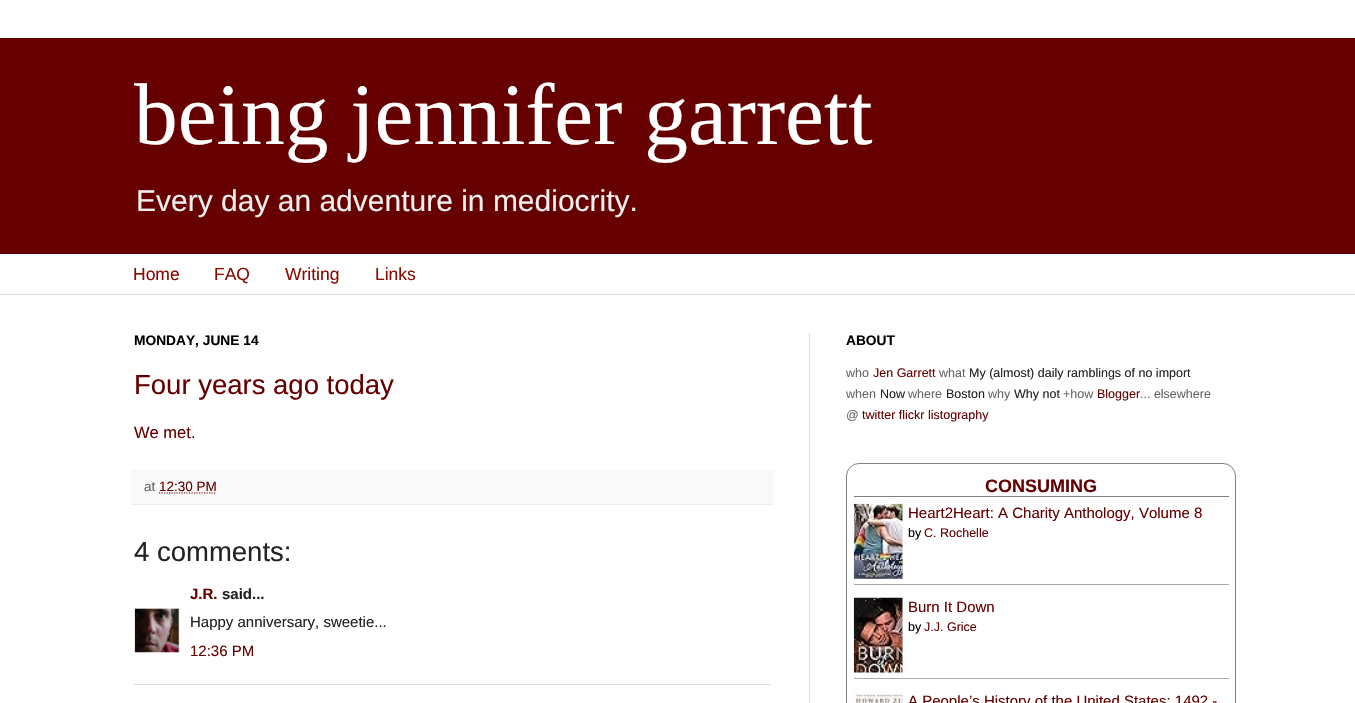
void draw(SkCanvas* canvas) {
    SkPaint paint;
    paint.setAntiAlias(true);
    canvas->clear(0xFFFFFFFF);
    paint.setColor(0xFF660000);
    canvas->drawRect(SkRect::MakeXYWH(0, 38, 1355, 216), paint);
    SkFont font1(fontMgr->matchFamilyStyle("Liberation Serif", SkFontStyle::Normal()), 87.5f);
    font1.setSubpixel(true);
    paint.setColor(0xFFFFFFFF);
    canvas->drawString("being jennifer garrett", 134, 144, font1, paint);
    SkFont font2(fontMgr->matchFamilyStyle("Liberation Sans", SkFontStyle::Normal()), 30);
    font2.setSubpixel(true);
    paint.setColor(0xFFEEEEEE);
    canvas->drawString("Every day an adventure in mediocrity.", 136, 211, font2, paint);
    SkFont font3(fontMgr->matchFamilyStyle("Liberation Sans", SkFontStyle::Normal()), 17.5f);
    font3.setSubpixel(true);
    paint.setColor(0xFF8B0A00);
    canvas->drawString("Home", 133, 280, font3, paint);
    canvas->drawString("FAQ", 214, 280, font3, paint);
    canvas->drawString("Writing", 285, 280, font3, paint);
    canvas->drawString("Links", 375, 280, font3, paint);
    paint.setColor(0xFFDDDDDD);
    canvas->drawRect(SkRect::MakeXYWH(0, 294, 1355, 1), paint);
    canvas->drawRect(SkRect::MakeXYWH(809, 333, 1, 370), paint);
    SkFont font4(fontMgr->matchFamilyStyle("Liberation Sans", SkFontStyle::Bold()), 13.75f);
    font4.setSubpixel(true);
    paint.setColor(0xFF000000);
    canvas->drawString("MONDAY, JUNE 14", 134, 345, font4, paint);
    SkFont font5(fontMgr->matchFamilyStyle("Liberation Sans", SkFontStyle::Normal()), 27.5f);
    font5.setSubpixel(true);
    paint.setColor(0xFF660000);
    canvas->drawString("Four years ago today", 134, 394, font5, paint);
    SkFont font6(fontMgr->matchFamilyStyle("Liberation Sans", SkFontStyle::Normal()), 16.5f);
    font6.setSubpixel(true);
    canvas->drawString("We met", 134, 438, font6, paint);
    paint.setColor(0xFF222222);
    canvas->drawString(".", 191, 438, font6, paint);
    paint.setColor(0xFFF9F9F9);
    canvas->drawRect(SkRect::MakeXYWH(131, 470, 643, 34), paint);
    paint.setColor(0xFFEEEEEE);
    canvas->drawRect(SkRect::MakeXYWH(131, 504, 643, 1), paint);
    SkFont font7(fontMgr->matchFamilyStyle("Liberation Sans", SkFontStyle::Normal()), 13.5f);
    font7.setSubpixel(true);
    paint.setColor(0xFF666666);
    canvas->drawString("at", 144, 491, font7, paint);
    paint.setColor(0xFF660000);
    canvas->drawString("12:30 PM", 159, 491, font7, paint);
    paint.setStyle(SkPaint::kStroke_Style);
    paint.setStrokeWidth(1.2f);
    paint.setPathEffect(SkDashPathEffect::Make({{1.25f, 1.25f}}, 0));
    canvas->drawPath(SkPathBuilder().moveTo(159, 493).lineTo(216.5f, 493).detach(), paint);
    paint.setPathEffect(nullptr);
    paint.setStyle(SkPaint::kFill_Style);
    paint.setColor(0xFF222222);
    canvas->drawString("4 comments:", 134, 561, font5, paint);
    SkFont font8(fontMgr->matchFamilyStyle("Liberation Sans", SkFontStyle::Bold()), 15);
    font8.setSubpixel(true);
    paint.setColor(0xFF660000);
    canvas->drawString("J.R.", 190, 599, font8, paint);
    paint.setColor(0xFF222222);
    canvas->drawString("said...", 222, 599, font8, paint);
    canvas->save();
    canvas->clipRect(SkRect::MakeXYWH(134, 608, 46, 45));
    paint.setStyle(SkPaint::kStroke_Style);
    paint.setStrokeWidth(1);
    paint.setColor(0xFFEEEEEE);
    canvas->drawRect(SkRect::MakeXYWH(134.5f, 608.5f, 45, 45), paint);
    canvas->restore();
    canvas->drawImageRect(SkImages::DeferredFromEncodedData(SkData::MakeFromFileName("img1.png")), SkRect::MakeXYWH(135, 608, 44, 45), SkSamplingOptions());
    SkFont font9(fontMgr->matchFamilyStyle("Liberation Sans", SkFontStyle::Normal()), 15);
    font9.setSubpixel(true);
    paint.setStyle(SkPaint::kFill_Style);
    paint.setColor(0xFF222222);
    canvas->drawString("Happy anniversary, sweetie...", 190, 627, font9, paint);
    paint.setColor(0xFF660000);
    canvas->drawString("12:36 PM", 190, 656, font9, paint);
    paint.setColor(0xFFDDDDDD);
    canvas->drawRect(SkRect::MakeXYWH(134, 684, 637, 1), paint);
    paint.setColor(0xFF000000);
    canvas->drawString("ABOUT", 846, 345, font4, paint);
    SkFont font10(fontMgr->matchFamilyStyle("Liberation Sans", SkFontStyle::Normal()), 12.5f);
    font10.setSubpixel(true);
    paint.setColor(0xFF666666);
    canvas->drawString("who", 846, 377, font10, paint);
    paint.setColor(0xFF660000);
    canvas->drawString("Jen Garrett", 873, 377, font10, paint);
    paint.setColor(0xFF666666);
    canvas->drawString("what", 939, 377, font10, paint);
    paint.setColor(0xFF222222);
    canvas->drawString("My (almost) daily ramblings of no import", 969, 377, font10, paint);
    paint.setColor(0xFF666666);
    canvas->drawString("when", 846, 398, font10, paint);
    paint.setColor(0xFF222222);
    canvas->drawString("Now", 880, 398, font10, paint);
    paint.setColor(0xFF666666);
    canvas->drawString("where", 908, 398, font10, paint);
    paint.setColor(0xFF222222);
    canvas->drawString("Boston", 946, 398, font10, paint);
    paint.setColor(0xFF666666);
    canvas->drawString("why", 988, 398, font10, paint);
    paint.setColor(0xFF222222);
    canvas->drawString("Why not", 1014, 398, font10, paint);
    paint.setColor(0xFF666666);
    canvas->drawString("+how", 1063, 398, font10, paint);
    paint.setColor(0xFF660000);
    canvas->drawString("Blogger", 1097, 398, font10, paint);
    paint.setColor(0xFF666666);
    canvas->drawString("... elsewhere", 1140, 398, font10, paint);
    canvas->drawString("@", 846, 419, font10, paint);
    paint.setColor(0xFF660000);
    canvas->drawString("twitter flickr listography", 862, 419, font10, paint);
    paint.setStyle(SkPaint::kStroke_Style);
    paint.setColor(0xFF808080);
    canvas->drawRoundRect(SkRect::MakeXYWH(846.5f, 463.5f, 389, 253), 12.5f, 12.5f, paint);
    paint.setStyle(SkPaint::kFill_Style);
    canvas->drawRect(SkRect::MakeXYWH(854, 496, 375, 1), paint);
    SkFont font11(fontMgr->matchFamilyStyle("Liberation Sans", SkFontStyle::Bold()), 18);
    font11.setSubpixel(true);
    paint.setColor(0xFF660000);
    canvas->drawString("CONSUMING", 985, 492, font11, paint);
    paint.setColor(0xFFAAAAAA);
    canvas->drawRect(SkRect::MakeXYWH(854, 584, 375, 1), paint);
    canvas->drawImageRect(SkImages::DeferredFromEncodedData(SkData::MakeFromFileName("img2.png")), SkRect::MakeXYWH(853, 503, 50, 76), SkSamplingOptions());
    paint.setColor(0xFF660000);
    canvas->drawString("Heart2Heart: A Charity Anthology, Volume 8", 908, 518, font9, paint);
    paint.setColor(0xFF000000);
    canvas->drawString("by", 908, 537, font10, paint);
    paint.setColor(0xFF660000);
    canvas->drawString("C. Rochelle", 924, 537, font10, paint);
    paint.setColor(0xFFAAAAAA);
    canvas->drawRect(SkRect::MakeXYWH(854, 678, 375, 1), paint);
    canvas->drawImageRect(SkImages::DeferredFromEncodedData(SkData::MakeFromFileName("img3.png")), SkRect::MakeXYWH(853, 597, 50, 76), SkSamplingOptions());
    paint.setColor(0xFF660000);
    canvas->drawString("Burn It Down", 908, 612, font9, paint);
    paint.setColor(0xFF000000);
    canvas->drawString("by", 908, 631, font10, paint);
    paint.setColor(0xFF660000);
    canvas->drawString("J.J. Grice", 924, 631, font10, paint);
    canvas->drawImageRect(SkImages::DeferredFromEncodedData(SkData::MakeFromFileName("img4.png")), SkRect::MakeXYWH(854, 691, 49, 12), SkSamplingOptions());
    canvas->drawString("A People’s History of the United States: 1492 -", 908, 706, font9, paint);
}
